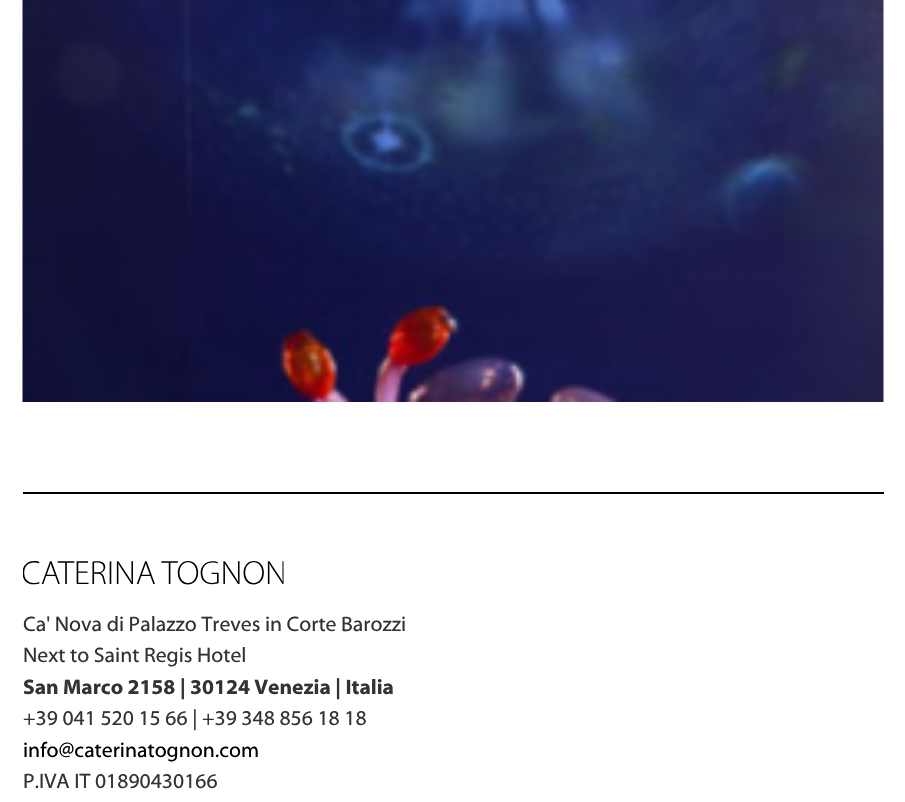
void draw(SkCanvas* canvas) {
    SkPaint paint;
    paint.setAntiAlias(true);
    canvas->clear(0xFFFFFFFF);
    canvas->drawImageRect(SkImages::DeferredFromEncodedData(SkData::MakeFromFileName("img1.png")), SkRect::MakeXYWH(22, 0, 862, 402), SkSamplingOptions());
    paint.setColor(0xFF000000);
    canvas->drawRect(SkRect::MakeXYWH(23, 492, 861, 2), paint);
    canvas->drawImageRect(SkImages::DeferredFromEncodedData(SkData::MakeFromFileName("img2.png")), SkRect::MakeXYWH(23, 561, 261, 24), SkSamplingOptions());
    SkFont font1(fontMgr->matchFamilyStyle("Myriad", SkFontStyle::Normal()), 21);
    font1.setSubpixel(true);
    paint.setColor(0xFF333333);
    canvas->drawString("Ca' Nova di Palazzo Treves in Corte Barozzi", 23, 631, font1, paint);
    canvas->drawString("Next to Saint Regis Hotel", 23, 662, font1, paint);
    SkFont font2(fontMgr->matchFamilyStyle("Myriad", SkFontStyle::Bold()), 21);
    font2.setSubpixel(true);
    canvas->drawString("San Marco 2158 | 30124 Venezia | Italia", 23, 694, font2, paint);
    canvas->drawString("+39 041 520 15 66 | +39 348 856 18 18", 23, 725, font1, paint);
    paint.setColor(0xFF000000);
    canvas->drawString("info@caterinatognon.com", 23, 757, font1, paint);
    paint.setColor(0xFF333333);
    canvas->drawString("P.IVA IT 01890430166", 23, 788, font1, paint);
}
